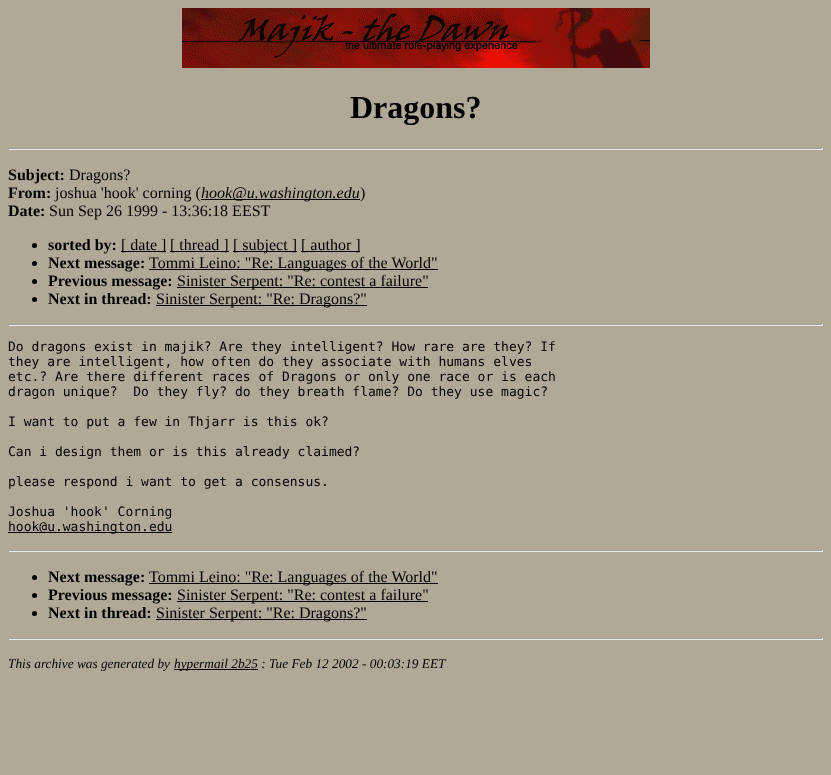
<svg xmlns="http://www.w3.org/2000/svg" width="831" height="775">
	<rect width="100%" height="100%" fill="#B0A997" />
	<image x="182" y="8" width="468" height="60" href="assets/img1.png" />
	<text x="350" y="118" font-family="Liberation Serif" font-size="32" font-weight="700" fill="#000000">Dragons?</text>
	<rect x="8" y="148" width="815" height="1" fill="#9F9F9F" />
	<rect x="822" y="148" width="1" height="2" fill="#EEEEEE" />
	<rect x="8" y="149" width="815" height="1" fill="#EEEEEE" />
	<rect x="8" y="148" width="1" height="2" fill="#9F9F9F" />
	<text x="8" y="180" font-family="Liberation Serif" font-size="16" font-weight="700" fill="#000000">Subject:</text>
	<text x="69" y="180" font-family="Liberation Serif" font-size="16" fill="#000000">Dragons?</text>
	<text x="8" y="198" font-family="Liberation Serif" font-size="16" font-weight="700" fill="#000000">From:</text>
	<text x="55" y="198" font-family="Liberation Serif" font-size="16" fill="#000000">joshua 'hook' corning (</text>
	<rect x="201" y="199" width="159" height="1" fill="#000000" />
	<text x="201" y="198" font-family="Liberation Serif" font-size="16" font-style="italic" fill="#000000">hook@u.washington.edu</text>
	<text x="360" y="198" font-family="Liberation Serif" font-size="16" fill="#000000">)</text>
	<text x="8" y="216" font-family="Liberation Serif" font-size="16" font-weight="700" fill="#000000">Date:</text>
	<text x="49" y="216" font-family="Liberation Serif" font-size="16" fill="#000000">Sun Sep 26 1999 - 13:36:18 EEST</text>
	<circle cx="34.5" cy="245.5" r="2.5" fill="#000000" />
	<text x="48" y="250" font-family="Liberation Serif" font-size="16" font-weight="700" fill="#000000">sorted by:</text>
	<rect x="121" y="251" width="45" height="1" fill="#000000" />
	<text x="121" y="250" font-family="Liberation Serif" font-size="16" fill="#000000">[ date ]</text>
	<rect x="170" y="251" width="59" height="1" fill="#000000" />
	<text x="170" y="250" font-family="Liberation Serif" font-size="16" fill="#000000">[ thread ]</text>
	<rect x="233" y="251" width="64" height="1" fill="#000000" />
	<text x="233" y="250" font-family="Liberation Serif" font-size="16" fill="#000000">[ subject ]</text>
	<rect x="301" y="251" width="59" height="1" fill="#000000" />
	<text x="301" y="250" font-family="Liberation Serif" font-size="16" fill="#000000">[ author ]</text>
	<circle cx="34.5" cy="263.5" r="2.5" fill="#000000" />
	<text x="48" y="268" font-family="Liberation Serif" font-size="16" font-weight="700" fill="#000000">Next message:</text>
	<rect x="149" y="269" width="289" height="1" fill="#000000" />
	<text x="149" y="268" font-family="Liberation Serif" font-size="16" fill="#000000">Tommi Leino: "Re: Languages of the World"</text>
	<circle cx="34.5" cy="281.5" r="2.5" fill="#000000" />
	<text x="48" y="286" font-family="Liberation Serif" font-size="16" font-weight="700" fill="#000000">Previous message:</text>
	<rect x="177" y="287" width="251" height="1" fill="#000000" />
	<text x="177" y="286" font-family="Liberation Serif" font-size="16" fill="#000000">Sinister Serpent: "Re: contest a failure"</text>
	<circle cx="34.5" cy="299.5" r="2.5" fill="#000000" />
	<text x="48" y="304" font-family="Liberation Serif" font-size="16" font-weight="700" fill="#000000">Next in thread:</text>
	<rect x="156" y="305" width="211" height="1" fill="#000000" />
	<text x="156" y="304" font-family="Liberation Serif" font-size="16" fill="#000000">Sinister Serpent: "Re: Dragons?"</text>
	<rect x="8" y="324" width="815" height="1" fill="#9F9F9F" />
	<rect x="822" y="324" width="1" height="2" fill="#EEEEEE" />
	<rect x="8" y="325" width="815" height="1" fill="#EEEEEE" />
	<rect x="8" y="324" width="1" height="2" fill="#9F9F9F" />
	<g font-family="DejaVu Sans Mono" font-size="13" fill="#000000">
		<text x="8" y="351">Do dragons exist in majik? Are they intelligent? How rare are they? If</text>
		<text x="8" y="366">they are intelligent, how often do they associate with humans elves</text>
		<text x="8" y="381">etc.? Are there different races of Dragons or only one race or is each</text>
		<text x="8" y="396" xml:space="preserve">dragon unique?  Do they fly? do they breath flame? Do they use magic?</text>
		<text x="8" y="426">I want to put a few in Thjarr is this ok?</text>
		<text x="8" y="456">Can i design them or is this already claimed?</text>
		<text x="8" y="486">please respond i want to get a consensus.</text>
		<text x="8" y="516">Joshua 'hook' Corning</text>
	</g>
	<rect x="8" y="532" width="164" height="1" fill="#000000" />
	<text x="8" y="531" font-family="DejaVu Sans Mono" font-size="13" fill="#000000">hook@u.washington.edu</text>
	<rect x="8" y="550" width="815" height="1" fill="#9F9F9F" />
	<rect x="822" y="550" width="1" height="2" fill="#EEEEEE" />
	<rect x="8" y="551" width="815" height="1" fill="#EEEEEE" />
	<rect x="8" y="550" width="1" height="2" fill="#9F9F9F" />
	<circle cx="34.5" cy="577.5" r="2.5" fill="#000000" />
	<text x="48" y="582" font-family="Liberation Serif" font-size="16" font-weight="700" fill="#000000">Next message:</text>
	<rect x="149" y="583" width="289" height="1" fill="#000000" />
	<text x="149" y="582" font-family="Liberation Serif" font-size="16" fill="#000000">Tommi Leino: "Re: Languages of the World"</text>
	<circle cx="34.5" cy="595.5" r="2.5" fill="#000000" />
	<text x="48" y="600" font-family="Liberation Serif" font-size="16" font-weight="700" fill="#000000">Previous message:</text>
	<rect x="177" y="601" width="251" height="1" fill="#000000" />
	<text x="177" y="600" font-family="Liberation Serif" font-size="16" fill="#000000">Sinister Serpent: "Re: contest a failure"</text>
	<circle cx="34.5" cy="613.5" r="2.5" fill="#000000" />
	<text x="48" y="618" font-family="Liberation Serif" font-size="16" font-weight="700" fill="#000000">Next in thread:</text>
	<rect x="156" y="619" width="211" height="1" fill="#000000" />
	<text x="156" y="618" font-family="Liberation Serif" font-size="16" fill="#000000">Sinister Serpent: "Re: Dragons?"</text>
	<rect x="8" y="638" width="815" height="1" fill="#9F9F9F" />
	<rect x="822" y="638" width="1" height="2" fill="#EEEEEE" />
	<rect x="8" y="639" width="815" height="1" fill="#EEEEEE" />
	<rect x="8" y="638" width="1" height="2" fill="#9F9F9F" />
	<text x="8" y="668" font-family="Liberation Serif" font-size="13.3" font-style="italic" fill="#000000">This archive was generated by</text>
	<rect x="174" y="669" width="84" height="1" fill="#000000" />
	<text x="174" y="668" font-family="Liberation Serif" font-size="13.3" font-style="italic" fill="#000000">hypermail 2b25 : Tue Feb 12 2002 - 00:03:19 EET</text>
</svg>
